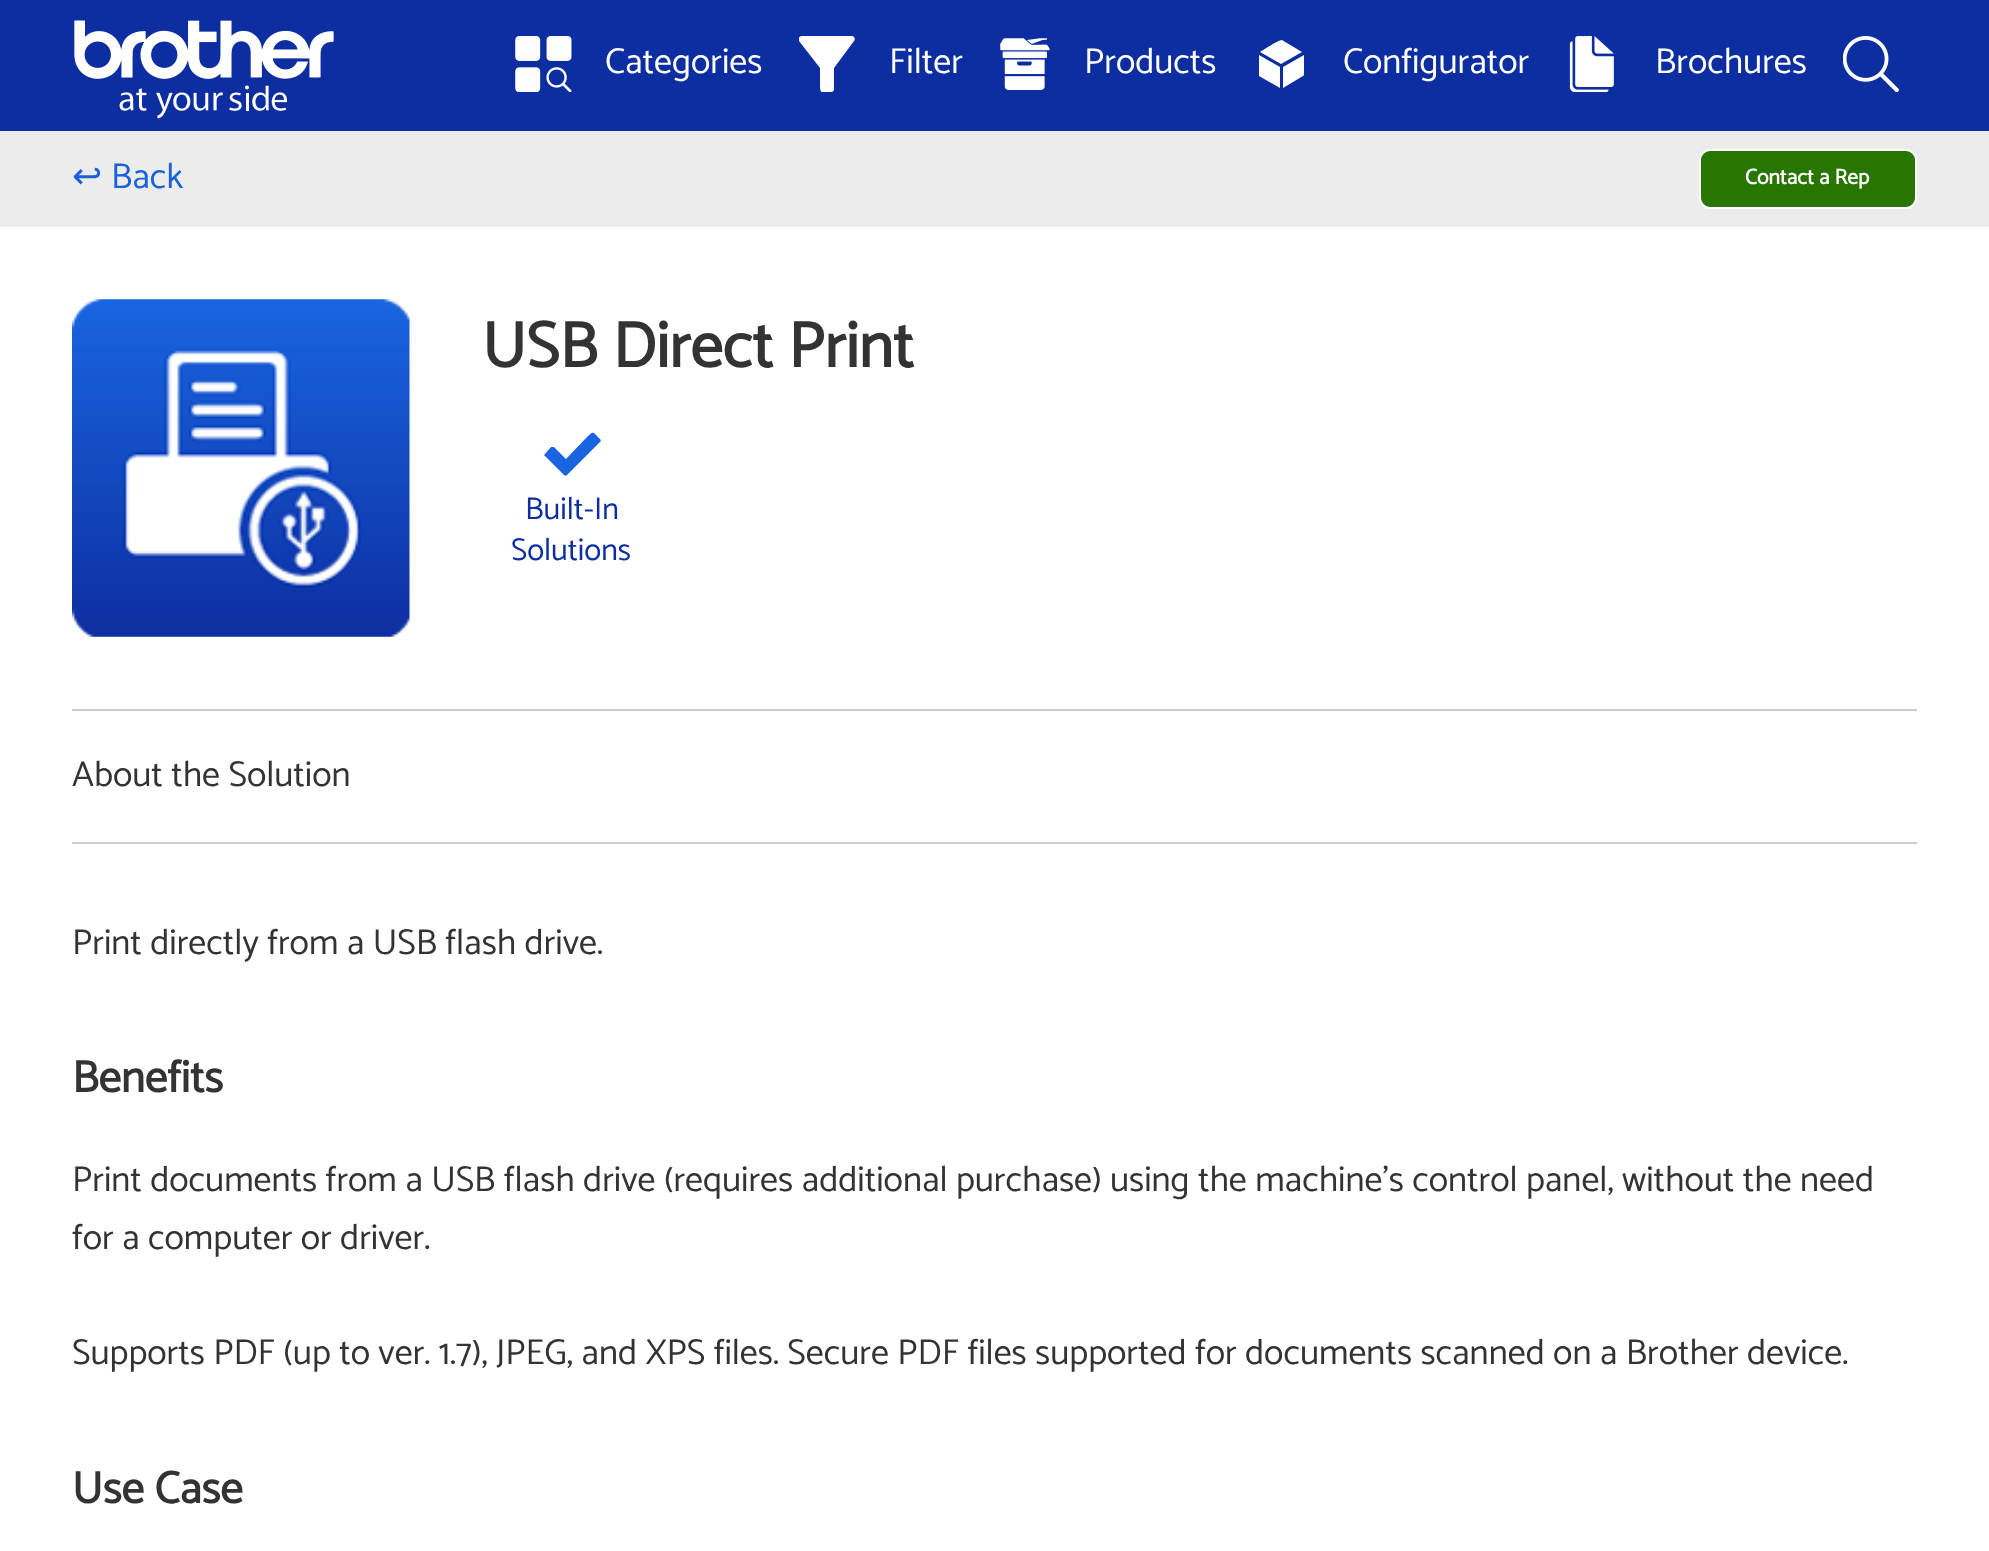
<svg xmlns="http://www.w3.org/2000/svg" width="1989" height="1551">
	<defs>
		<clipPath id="clip1"><rect x="799" y="36" width="56" height="56" /></clipPath>
	</defs>
	<rect width="100%" height="100%" fill="#ECECEC" />
	<rect x="0" y="0" width="1989" height="131" fill="#0D2EA0" />
	<image x="74" y="20" width="260" height="99" href="assets/img1.png" />
	<image x="515" y="36" width="57" height="56" href="assets/img2.png" />
	<text x="605" y="73" font-family="Catamaran" font-size="36" font-weight="100" fill="#FFFFFF">Categories</text>
	<g clip-path="url(#clip1)">
		<path d="M831 92C823 92 820 95 820 86V68L799 41C798 39 799 36 802 36H852C854 36 856 39 854 41L834 68V89C834 91 833 92 831 92Z" fill="#FFFFFF" />
	</g>
	<text x="889" y="73" font-family="Catamaran" font-size="36" font-weight="100" fill="#FFFFFF">Filter</text>
	<image x="1000" y="38" width="50" height="52" href="assets/img3.png" />
	<text x="1084" y="73" font-family="Catamaran" font-size="36" font-weight="100" fill="#FFFFFF">Products</text>
	<path d="M1282 40C1280 39 1263 50 1260 52L1281 64L1302 52ZM1304 55L1283 67V88L1303 76L1304 75ZM1280 88V67L1259 55V75V76Z" fill="#FFFFFF" />
	<text x="1343" y="73" font-family="Catamaran" font-size="36" font-weight="100" fill="#FFFFFF">Configurator</text>
	<image x="1569" y="36" width="45" height="56" href="assets/img4.png" />
	<text x="1655" y="73" font-family="Catamaran" font-size="36" font-weight="100" fill="#FFFFFF">Brochures</text>
	<image x="1843" y="36" width="56" height="56" href="assets/img5.png" />
	<text x="72" y="188" font-family="DejaVu Sans" font-size="36" fill="#1861D8">↩</text>
	<text x="111" y="188" font-family="Catamaran" font-size="36" font-weight="100" fill="#1861D8">Back</text>
	<rect x="1700" y="150" width="216" height="58" rx="10" fill="#287600" stroke="#FFFFFF" stroke-width="2" />
	<text x="1745" y="184" font-family="Catamaran" font-size="21.5" font-weight="700" fill="#FFFFFF">Contact a Rep</text>
	<rect x="0" y="227" width="1989" height="1324" fill="#FFFFFF" />
	<image x="72" y="299" width="338" height="338" href="assets/img6.png" />
	<text x="482" y="367" font-family="Catamaran" font-size="64.75" font-weight="700" fill="#333333">USB Direct Print</text>
	<path d="M600 439C593 432 594 430 587 437L566 459L554 447C554 447 552 447 551 447L545 454C544 454 544 456 545 456L564 475C565 476 566 476 567 475L600 442C601 441 601 440 600 439Z" fill="#1965E1" fill-rule="evenodd" />
	<g font-family="Catamaran" font-size="31.5" font-weight="100" fill="#0D2EA0">
		<text x="525" y="519">Built-In</text>
		<text x="511" y="560">Solutions</text>
	</g>
	<rect x="72" y="709" width="1845" height="2" fill="#CCCCCC" />
	<rect x="72" y="842" width="1845" height="2" fill="#CCCCCC" />
	<g font-family="Catamaran" font-size="36" font-weight="100" fill="#333333">
		<text x="72" y="786">About the Solution</text>
		<text x="72" y="954">Print directly from a USB flash drive.</text>
	</g>
	<text x="72" y="1092" font-family="Catamaran" font-size="45" font-weight="700" fill="#333333">Benefits</text>
	<g font-family="Catamaran" font-size="36" font-weight="100" fill="#333333">
		<text x="72" y="1191">Print documents from a USB flash drive (requires additional purchase) using the machine's control panel, without the need</text>
		<text x="72" y="1249">for a computer or driver.</text>
		<text x="72" y="1364">Supports PDF (up to ver. 1.7), JPEG, and XPS files. Secure PDF files supported for documents scanned on a Brother device.</text>
	</g>
	<text x="72" y="1503" font-family="Catamaran" font-size="45" font-weight="700" fill="#333333">Use Case</text>
</svg>
